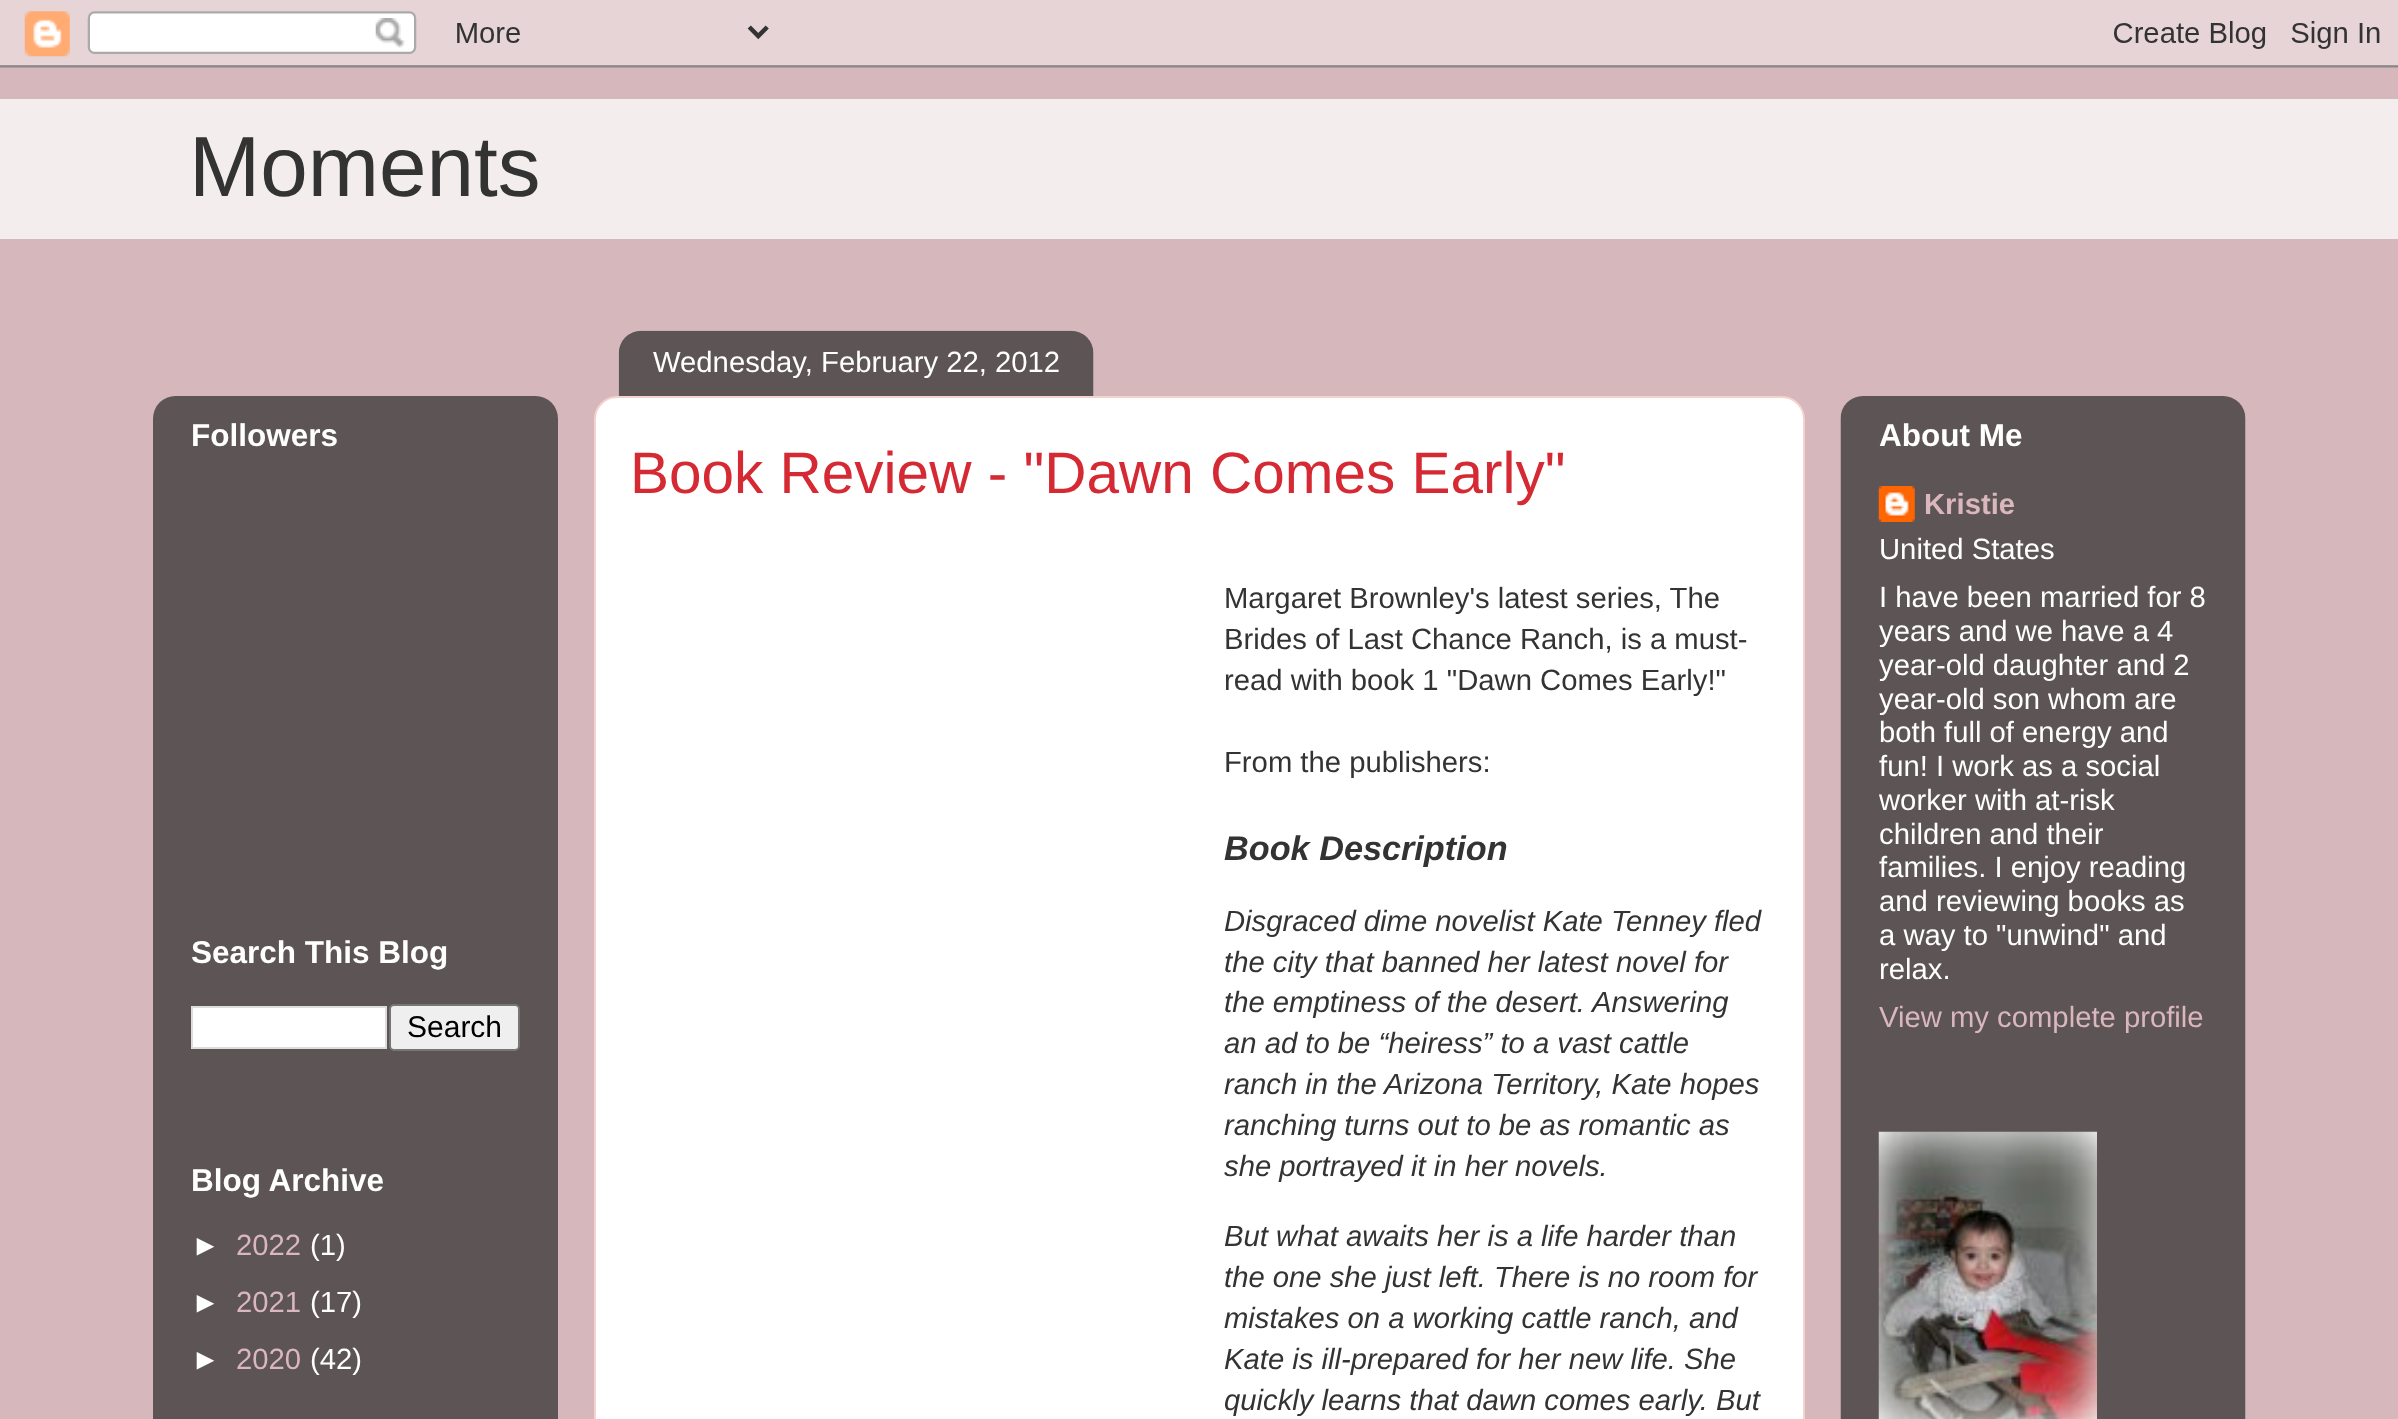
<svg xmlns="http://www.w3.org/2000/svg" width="2398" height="1419">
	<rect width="100%" height="100%" fill="#D5B7BC" />
	<image x="0" y="0" width="2398" height="68" href="assets/img1.png" />
	<rect x="0" y="99" width="2398" height="140" fill="#F4EDEE" />
	<text x="189" y="196" font-family="Liberation Sans" font-size="85.5" fill="#333333">Moments</text>
	<image x="153" y="396" width="405" height="1023" href="assets/img2.png" />
	<g font-family="Liberation Sans" font-size="31.5" font-weight="700" fill="#FFFFFF">
		<text x="191" y="446">Followers</text>
		<text x="191" y="963">Search This Blog</text>
	</g>
	<rect x="192" y="1007" width="194" height="41" fill="#FFFFFF" stroke="#DDDDDD" stroke-width="2" />
	<rect x="390" y="1005" width="129" height="45" rx="4" fill="#EFEFEF" stroke="#767676" stroke-width="2" />
	<text x="407" y="1037" font-family="Liberation Sans" font-size="30" fill="#000000">Search</text>
	<text x="191" y="1191" font-family="Liberation Sans" font-size="31.5" font-weight="700" fill="#FFFFFF">Blog Archive</text>
	<text x="191" y="1255" font-family="Liberation Sans" font-size="29.25" fill="#FFFFFF">►</text>
	<text x="236" y="1255" font-family="Liberation Sans" font-size="29.25" fill="#DAB7BC">2022</text>
	<g font-family="Liberation Sans" font-size="29.25" fill="#FFFFFF">
		<text x="310" y="1255">(1)</text>
		<text x="191" y="1312">►</text>
	</g>
	<text x="236" y="1312" font-family="Liberation Sans" font-size="29.25" fill="#DAB7BC">2021</text>
	<g font-family="Liberation Sans" font-size="29.25" fill="#FFFFFF">
		<text x="310" y="1312">(17)</text>
		<text x="191" y="1369">►</text>
	</g>
	<text x="236" y="1369" font-family="Liberation Sans" font-size="29.25" fill="#DAB7BC">2020</text>
	<text x="310" y="1369" font-family="Liberation Sans" font-size="29.25" fill="#FFFFFF">(42)</text>
	<path d="M617 397H1782C1794 397 1804 407 1804 419V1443H595V419C595 407 605 397 617 397Z" fill="#FFFFFF" stroke="#F4D3CC" stroke-width="2" />
	<image x="618" y="330" width="476" height="66" href="assets/img3.png" />
	<text x="653" y="372" font-family="Liberation Sans" font-size="29.25" fill="#FFFFFF">Wednesday, February 22, 2012</text>
	<text x="630" y="493" font-family="Liberation Sans" font-size="58.5" fill="#D52A33">Book Review - "Dawn Comes Early"</text>
	<g font-family="Liberation Sans" font-size="29.25" fill="#333333">
		<text x="1224" y="608">Margaret Brownley's latest series, The</text>
		<text x="1224" y="649">Brides of Last Chance Ranch, is a must-</text>
		<text x="1224" y="690">read with book 1 "Dawn Comes Early!"</text>
		<text x="1224" y="772">From the publishers:</text>
	</g>
	<text x="1224" y="860" font-family="Liberation Sans" font-size="34.25" font-weight="700" font-style="italic" fill="#333333">Book Description</text>
	<g font-family="Liberation Sans" font-size="29.25" font-style="italic" fill="#333333">
		<text x="1224" y="931">Disgraced dime novelist Kate Tenney fled</text>
		<text x="1224" y="972">the city that banned her latest novel for</text>
		<text x="1224" y="1012">the emptiness of the desert. Answering</text>
		<text x="1224" y="1053">an ad to be “heiress” to a vast cattle</text>
		<text x="1224" y="1094">ranch in the Arizona Territory, Kate hopes</text>
		<text x="1224" y="1135">ranching turns out to be as romantic as</text>
		<text x="1224" y="1176">she portrayed it in her novels.</text>
		<text x="1224" y="1246">But what awaits her is a life harder than</text>
		<text x="1224" y="1287">the one she just left. There is no room for</text>
		<text x="1224" y="1328">mistakes on a working cattle ranch, and</text>
		<text x="1224" y="1369">Kate is ill-prepared for her new life. She</text>
		<text x="1224" y="1410">quickly learns that dawn comes early. But</text>
	</g>
	<image x="1840" y="396" width="406" height="1023" href="assets/img4.png" />
	<text x="1879" y="446" font-family="Liberation Sans" font-size="31.5" font-weight="700" fill="#FFFFFF">About Me</text>
	<image x="1878" y="486" width="37" height="36" href="assets/img5.png" />
	<text x="1924" y="514" font-family="Liberation Sans" font-size="29.25" font-weight="700" fill="#DAB7BC">Kristie</text>
	<g font-family="Liberation Sans" font-size="29.25" fill="#FFFFFF">
		<text x="1879" y="559">United States</text>
		<text x="1879" y="607">I have been married for 8</text>
		<text x="1879" y="641">years and we have a 4</text>
		<text x="1879" y="675">year-old daughter and 2</text>
		<text x="1879" y="709">year-old son whom are</text>
		<text x="1879" y="742">both full of energy and</text>
		<text x="1879" y="776">fun! I work as a social</text>
		<text x="1879" y="810">worker with at-risk</text>
		<text x="1879" y="844">children and their</text>
		<text x="1879" y="877">families. I enjoy reading</text>
		<text x="1879" y="911">and reviewing books as</text>
		<text x="1879" y="945">a way to "unwind" and</text>
		<text x="1879" y="979">relax.</text>
	</g>
	<text x="1879" y="1027" font-family="Liberation Sans" font-size="29.25" fill="#DAB7BC">View my complete profile</text>
	<image x="1878" y="1131" width="219" height="288" href="assets/img6.png" />
</svg>
